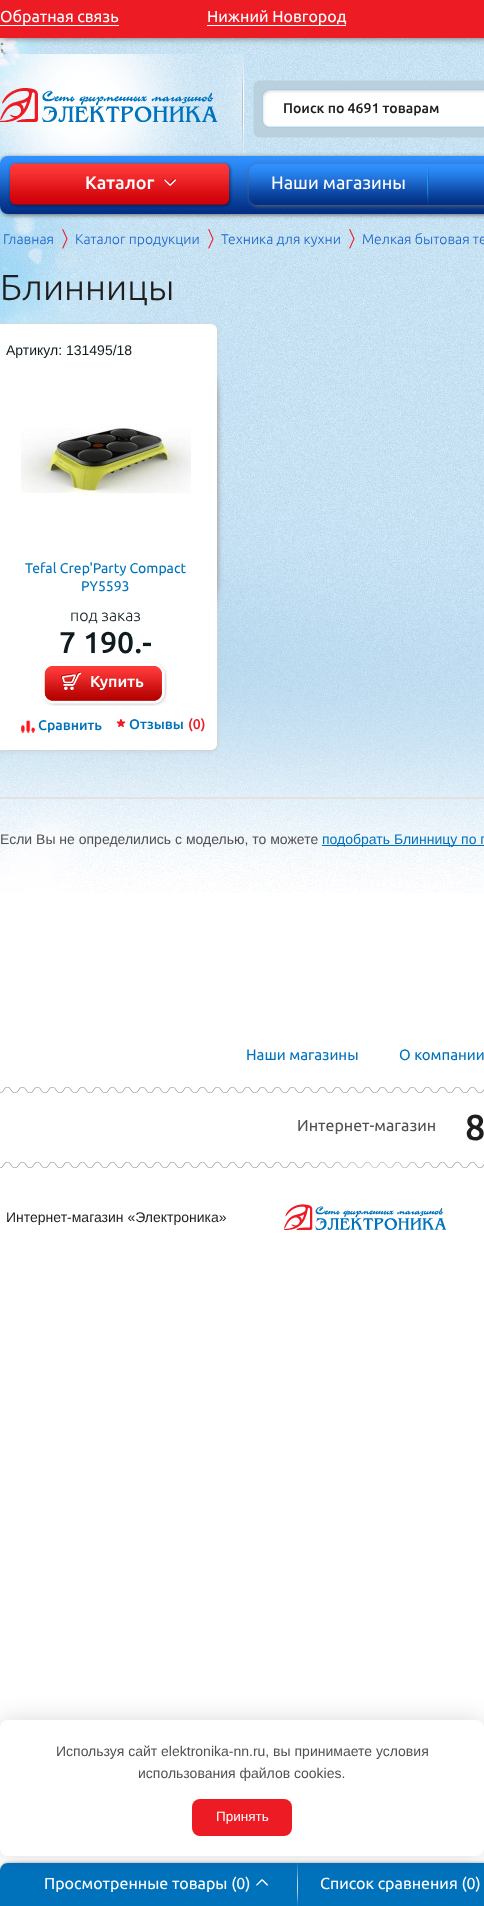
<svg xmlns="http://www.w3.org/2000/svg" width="484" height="1906">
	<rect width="100%" height="100%" fill="#FFFFFF" />
	<image x="0" y="38" width="484" height="855" href="assets/img1.png" />
	<rect x="0" y="0" width="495" height="38" fill="#666666" filter="blur(3.5px)" />
	<rect x="0" y="0" width="484" height="38" fill="#ED1C24" />
	<rect x="0" y="25" width="119" height="1" fill="#FFFFFF" />
	<text x="0" y="22" font-family="Ubuntu" font-size="16" fill="#FFFFFF">Обратная связь</text>
	<rect x="207" y="25" width="139" height="1" fill="#FFFFFF" />
	<text x="207" y="22" font-family="Ubuntu" font-size="16" fill="#FFFFFF">Нижний Новгород</text>
	<text x="0" y="51" font-family="Liberation Sans" font-size="14" fill="#515151">;</text>
	<image x="0" y="54" width="244" height="102" href="assets/img2.png" />
	<image x="242" y="57" width="2" height="99" href="assets/img3.png" />
	<image x="0" y="88" width="218" height="34" href="assets/img4.png" />
	<image x="253" y="80" width="231" height="58" href="assets/img5.png" />
	<text x="283" y="113" font-family="Ubuntu" font-size="14" font-weight="500" fill="#1E1E1E">Поиск по 4691 товарам</text>
	<rect x="1" y="157" width="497" height="58" rx="8" fill="#666666" filter="blur(2px)" />
	<image x="0" y="156" width="484" height="58" href="assets/img6.png" />
	<image x="8" y="162" width="225" height="46" href="assets/img7.png" />
	<text x="85" y="189" font-family="Ubuntu" font-size="18" font-weight="500" fill="#FFFFFF">Каталог</text>
	<image x="163" y="178" width="13" height="8" href="assets/img8.png" />
	<rect x="250" y="165" width="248" height="41" rx="8" fill="#666666" filter="blur(2px)" />
	<image x="249" y="164" width="235" height="41" href="assets/img9.png" />
	<image x="427" y="166" width="2" height="39" href="assets/img10.png" />
	<text x="271" y="189" font-family="Ubuntu" font-size="18" fill="#FFFFFF">Наши магазины</text>
	<image x="62" y="229" width="6" height="20" href="assets/img11.png" />
	<text x="3" y="244" font-family="Ubuntu" font-size="14" font-weight="300" fill="#1A65C8">Главная</text>
	<image x="208" y="229" width="6" height="20" href="assets/img12.png" />
	<text x="75" y="244" font-family="Ubuntu" font-size="14" font-weight="300" fill="#1A65C8">Каталог продукции</text>
	<image x="349" y="229" width="6" height="20" href="assets/img13.png" />
	<g font-family="Ubuntu" font-size="14" font-weight="300" fill="#1A65C8">
		<text x="221" y="244">Техника для кухни</text>
		<text x="362" y="244">Мелкая бытовая те</text>
	</g>
	<text x="0" y="300" font-family="Ubuntu" font-size="36" font-weight="300" fill="#1E1E1E">Блинницы</text>
	<rect x="-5" y="325" width="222" height="426" rx="6" fill="#CDCDCD" filter="blur(2px)" />
	<rect x="-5" y="329" width="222" height="321" rx="70" fill="#8E8E8E" filter="blur(3px)" />
	<rect x="-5" y="324" width="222" height="426" rx="6" fill="#FFFFFF" />
	<text x="6" y="355" font-family="Liberation Sans" font-size="14" fill="#0E1C20">Артикул: 131495/18</text>
	<image x="21" y="424" width="170" height="72" href="assets/img14.png" />
	<g font-family="Ubuntu" font-size="14" fill="#0072BC">
		<text x="25" y="573">Tefal Crep'Party Compact</text>
		<text x="81" y="591">PY5593</text>
	</g>
	<text x="70" y="621" font-family="Ubuntu" font-size="16" font-weight="300" fill="#0E1C20">под заказ</text>
	<text x="59" y="653" font-family="Ubuntu" font-size="30" font-weight="500" fill="#0E1C20">7 190.-</text>
	<image x="41" y="662" width="126" height="44" href="assets/img15.png" />
	<text x="90" y="687" font-family="Ubuntu" font-size="16" font-weight="500" fill="#FFFFFF">Купить</text>
	<image x="21" y="720" width="14" height="13" href="assets/img16.png" />
	<text x="38" y="730" font-family="Ubuntu" font-size="14" font-weight="500" fill="#0072BC">Cравнить</text>
	<image x="116" y="719" width="10" height="8" href="assets/img17.png" />
	<text x="129" y="729" font-family="Ubuntu" font-size="14" font-weight="500" fill="#0072BC">Отзывы</text>
	<text x="188" y="729" font-family="Ubuntu" font-size="14" font-weight="500" fill="#ED1C24">(0)</text>
	<rect x="0" y="797" width="484" height="2" fill="#E2E2E2" />
	<text x="0" y="844" font-family="Liberation Sans" font-size="14" fill="#515151">Если Вы не определились с моделью, то можете</text>
	<rect x="322" y="845" width="162" height="1" fill="#0072BC" />
	<text x="322" y="844" font-family="Liberation Sans" font-size="14" fill="#0072BC">подобрать Блинницу по п</text>
	<g font-family="Ubuntu" font-size="15" fill="#0072BC">
		<text x="246" y="1060">Наши магазины</text>
		<text x="399" y="1060">О компании</text>
	</g>
	<image x="0" y="1087" width="484" height="6" href="assets/img18.png" />
	<text x="297" y="1131" font-family="Ubuntu" font-size="16" fill="#515151">Интернет-магазин</text>
	<text x="465" y="1140" font-family="Ubuntu" font-size="36" font-weight="500" fill="#1E1E1E">8</text>
	<image x="0" y="1162" width="484" height="6" href="assets/img18.png" />
	<image x="311" y="1162" width="127" height="6" href="assets/img19.png" />
	<text x="6" y="1222" font-family="Liberation Sans" font-size="14" fill="#1E1E1E">Интернет-магазин «Электроника»</text>
	<image x="284" y="1204" width="162" height="26" href="assets/img20.png" />
	<rect x="1" y="1864" width="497" height="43" rx="8" fill="#666666" filter="blur(2px)" />
	<path d="M8 1863H484C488.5 1863 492 1866.5 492 1871V1906H0V1871C0 1866.5 3.5 1863 8 1863Z" fill="#0072BC" />
	<image x="297" y="1863" width="1" height="43" href="assets/img21.png" />
	<text x="44" y="1889" font-family="Ubuntu" font-size="16" fill="#FFFFFF">Просмотренные товары (0)</text>
	<image x="256" y="1879" width="12" height="7" href="assets/img22.png" />
	<text x="320" y="1889" font-family="Ubuntu" font-size="16" fill="#FFFFFF">Список сравнения (0)</text>
	<rect x="0" y="1720" width="484" height="136" rx="8" fill="#000000" fill-opacity="0.15" filter="blur(12.5px)" />
	<rect x="0" y="1720" width="484" height="136" rx="8" fill="#FFFFFF" />
	<g font-family="Liberation Sans" font-size="14" fill="#515151">
		<text x="56" y="1756">Используя сайт elektronika-nn.ru, вы принимаете условия</text>
		<text x="138" y="1778">использования файлов cookies.</text>
	</g>
	<rect x="192" y="1799" width="100" height="37" rx="8" fill="#ED1C24" />
	<text x="216" y="1821" font-family="Liberation Sans" font-size="13.5" fill="#FFFFFF">Принять</text>
</svg>
